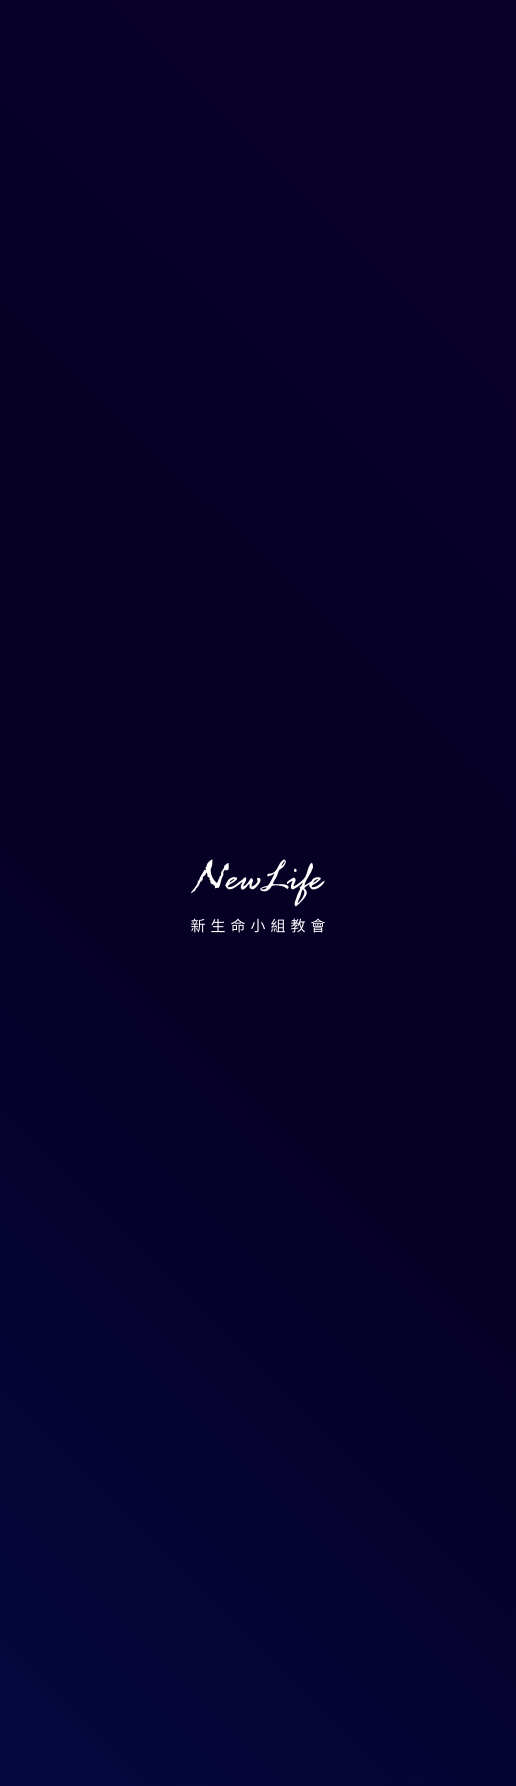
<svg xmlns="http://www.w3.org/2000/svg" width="516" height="1786">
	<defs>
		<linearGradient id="g1" gradientUnits="userSpaceOnUse" x1="-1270" y1="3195" x2="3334" y2="-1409"><stop offset="0" stop-color="#001A8B" /><stop offset="0.4" stop-color="#060024" /><stop offset="0.75" stop-color="#0D0030" /><stop offset="1" stop-color="#CC2B5E" /></linearGradient>
	</defs>
	<rect width="100%" height="100%" fill="#FFFFFF" />
	<rect x="0" y="0" width="516" height="1786" fill="url(#g1)" />
	<image x="191" y="859" width="38" height="34" href="assets/img1.png" />
	<image x="225" y="877" width="36" height="13" href="assets/img2.png" />
	<image x="260" y="859" width="29" height="33" href="assets/img3.png" />
	<image x="286" y="862" width="39" height="45" href="assets/img4.png" />
	<image x="191" y="918" width="14" height="15" href="assets/img5.png" />
	<image x="211" y="918" width="14" height="15" href="assets/img6.png" />
	<image x="231" y="918" width="14" height="15" href="assets/img7.png" />
	<image x="251" y="918" width="14" height="15" href="assets/img8.png" />
	<image x="271" y="918" width="14" height="15" href="assets/img9.png" />
	<image x="291" y="918" width="14" height="15" href="assets/img10.png" />
	<image x="311" y="918" width="14" height="15" href="assets/img11.png" />
</svg>
